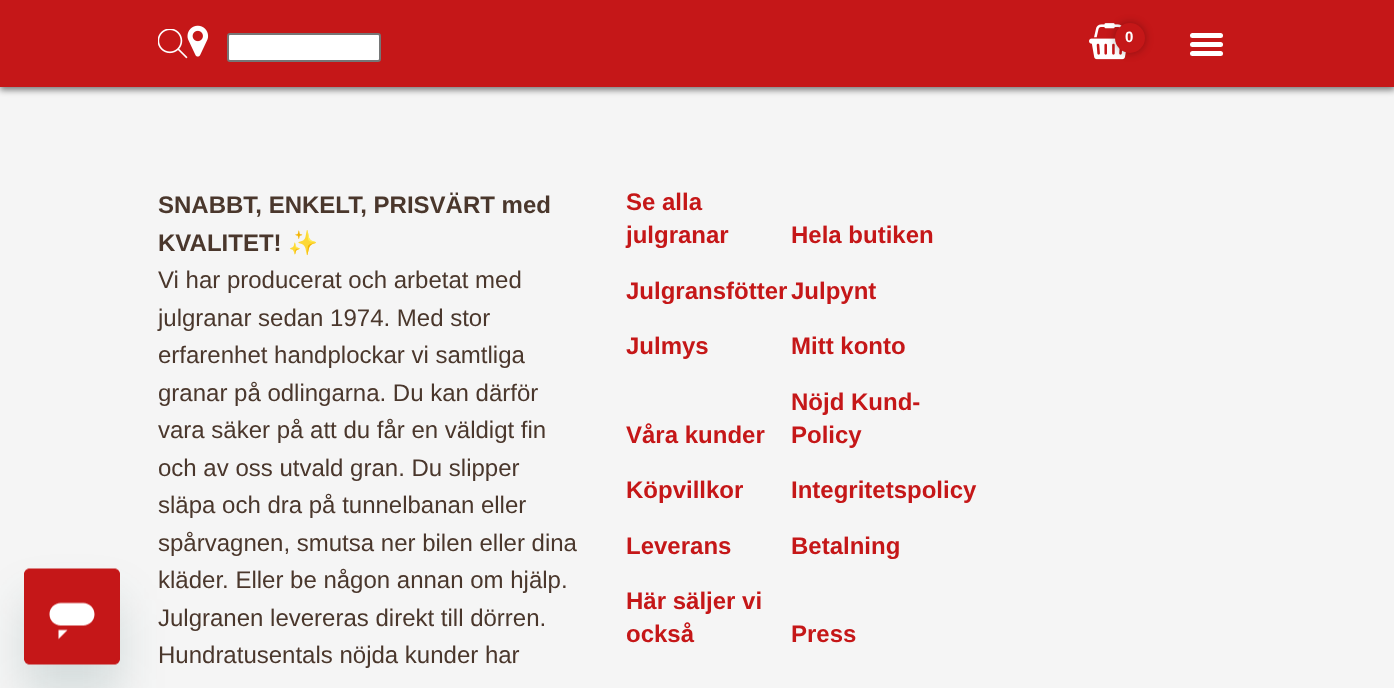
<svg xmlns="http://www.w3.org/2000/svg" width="1394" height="688">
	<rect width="100%" height="100%" fill="#F5F5F5" />
	<rect x="0" y="3" width="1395" height="87" fill="#000000" fill-opacity="0.5" filter="blur(3px)" />
	<rect x="0" y="0" width="1394" height="87" fill="#C51718" />
	<image x="187" y="25" width="22" height="32" href="assets/img2.png" />
	<image x="158" y="29" width="30" height="30" href="assets/img1.png" />
	<rect x="228" y="34" width="152" height="27" rx="2" fill="#FFFFFF" stroke="#767676" stroke-width="2" />
	<image x="1089" y="23" width="37" height="37" href="assets/img3.png" />
	<rect x="1115" y="23" width="30" height="30" rx="15" fill="#000000" fill-opacity="0.3" filter="blur(4px)" />
	<circle cx="1130" cy="38" r="15" fill="#C51718" />
	<text x="1125" y="42" font-family="Liberation Sans" font-size="15" font-weight="700" fill="#FFFFFF">0</text>
	<rect x="1190" y="33" width="33" height="5" rx="2.5" fill="#FFFFFF" />
	<rect x="1190" y="42" width="33" height="5" rx="2.5" fill="#FFFFFF" />
	<rect x="1190" y="51" width="33" height="5" rx="2.5" fill="#FFFFFF" />
	<rect x="24" y="599" width="96" height="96" rx="6" fill="#17494D" fill-opacity="0.15" filter="blur(22.5px)" />
	<image x="24" y="568" width="96" height="97" href="assets/img4.png" />
	<g font-family="Liberation Sans" font-size="24" font-weight="700" fill="#4A372C">
		<text x="158" y="213">SNABBT, ENKELT, PRISVÄRT med</text>
		<text x="158" y="251">KVALITET!</text>
	</g>
	<text x="288" y="251" font-family="Noto Color Emoji" font-size="24" font-weight="700" fill="#4A372C">✨</text>
	<g font-family="Liberation Sans" font-size="24" fill="#4A372C">
		<text x="158" y="288">Vi har producerat och arbetat med</text>
		<text x="158" y="326">julgranar sedan 1974. Med stor</text>
		<text x="158" y="363">erfarenhet handplockar vi samtliga</text>
		<text x="158" y="401">granar på odlingarna. Du kan därför</text>
		<text x="158" y="438">vara säker på att du får en väldigt fin</text>
		<text x="158" y="476">och av oss utvald gran. Du slipper</text>
		<text x="158" y="513">släpa och dra på tunnelbanan eller</text>
		<text x="158" y="551">spårvagnen, smutsa ner bilen eller dina</text>
		<text x="158" y="588">kläder. Eller be någon annan om hjälp.</text>
		<text x="158" y="626">Julgranen levereras direkt till dörren.</text>
		<text x="158" y="663">Hundratusentals nöjda kunder har</text>
	</g>
	<g font-family="Liberation Sans" font-size="24" font-weight="700" fill="#C51718">
		<text x="626" y="210">Se alla</text>
		<text x="626" y="243">julgranar</text>
		<text x="791" y="243">Hela butiken</text>
		<text x="626" y="299">Julgransfötter</text>
		<text x="791" y="299">Julpynt</text>
		<text x="626" y="354">Julmys</text>
		<text x="791" y="354">Mitt konto</text>
		<text x="626" y="443">Våra kunder</text>
		<text x="791" y="410">Nöjd Kund-</text>
		<text x="791" y="443">Policy</text>
		<text x="626" y="498">Köpvillkor</text>
		<text x="791" y="498">Integritetspolicy</text>
		<text x="626" y="554">Leverans</text>
		<text x="791" y="554">Betalning</text>
		<text x="626" y="609">Här säljer vi</text>
		<text x="626" y="642">också</text>
		<text x="791" y="642">Press</text>
	</g>
</svg>
